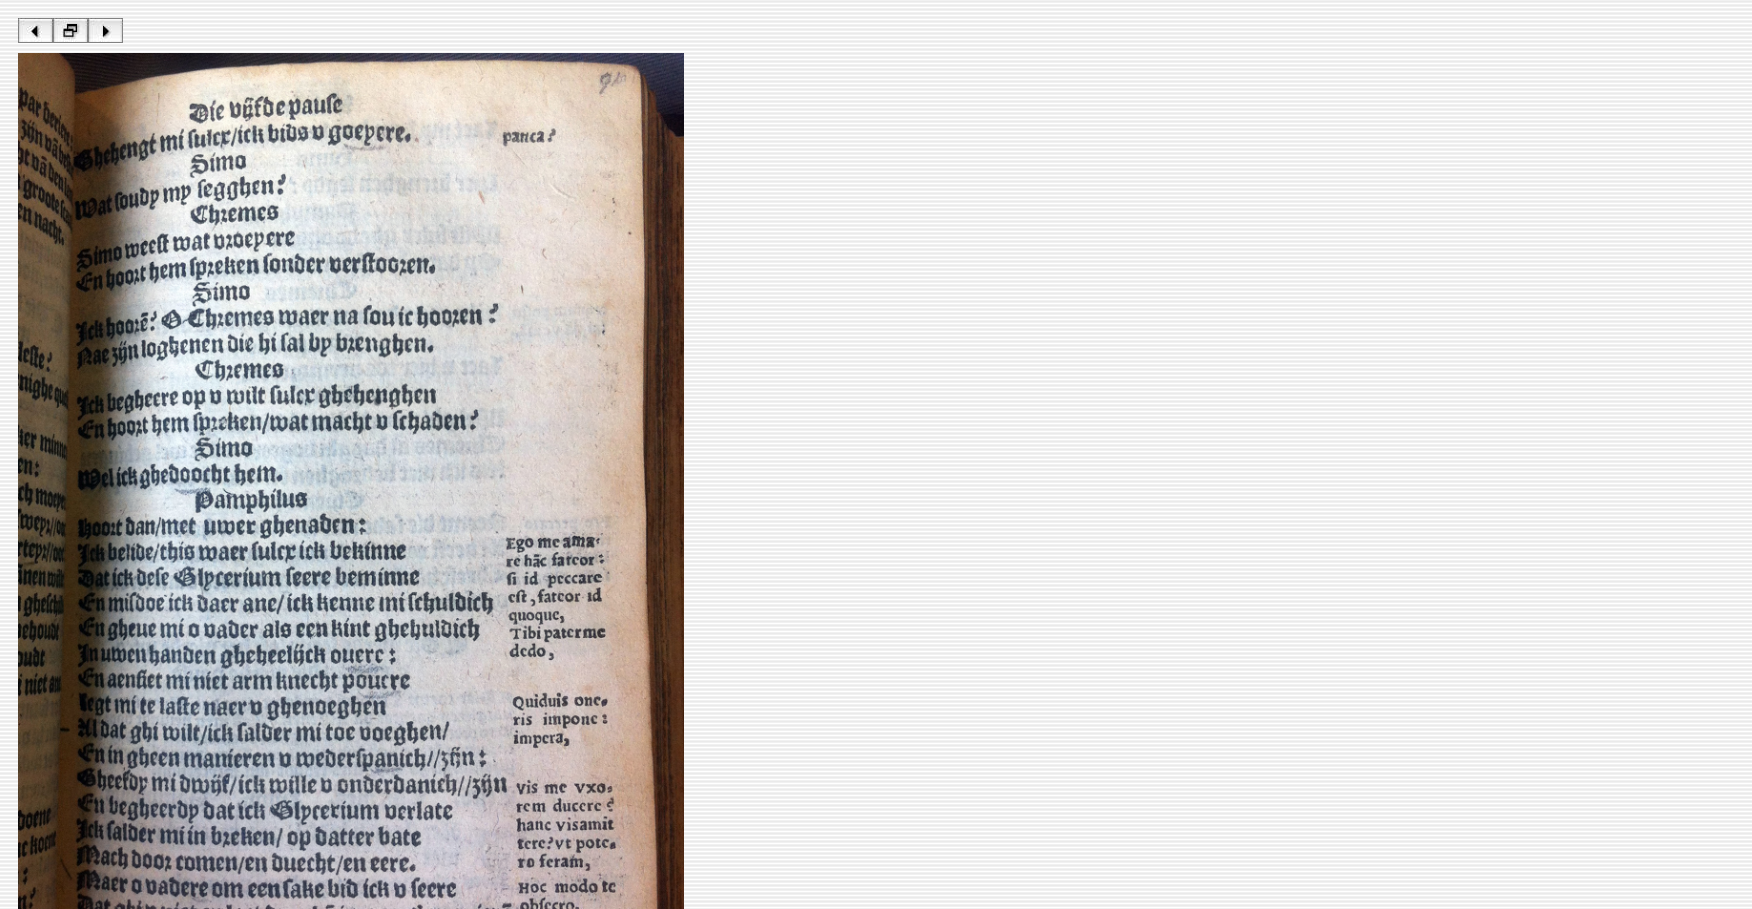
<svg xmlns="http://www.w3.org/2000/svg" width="1752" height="909">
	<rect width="100%" height="100%" fill="#FFFFFF" />
	<image x="0" y="0" width="1752" height="909" href="assets/img1.png" />
	<image x="18" y="18" width="35" height="25" href="assets/img2.png" />
	<image x="53" y="18" width="35" height="25" href="assets/img3.png" />
	<image x="88" y="18" width="35" height="25" href="assets/img4.png" />
	<image x="18" y="53" width="666" height="856" href="assets/img5.png" />
</svg>
